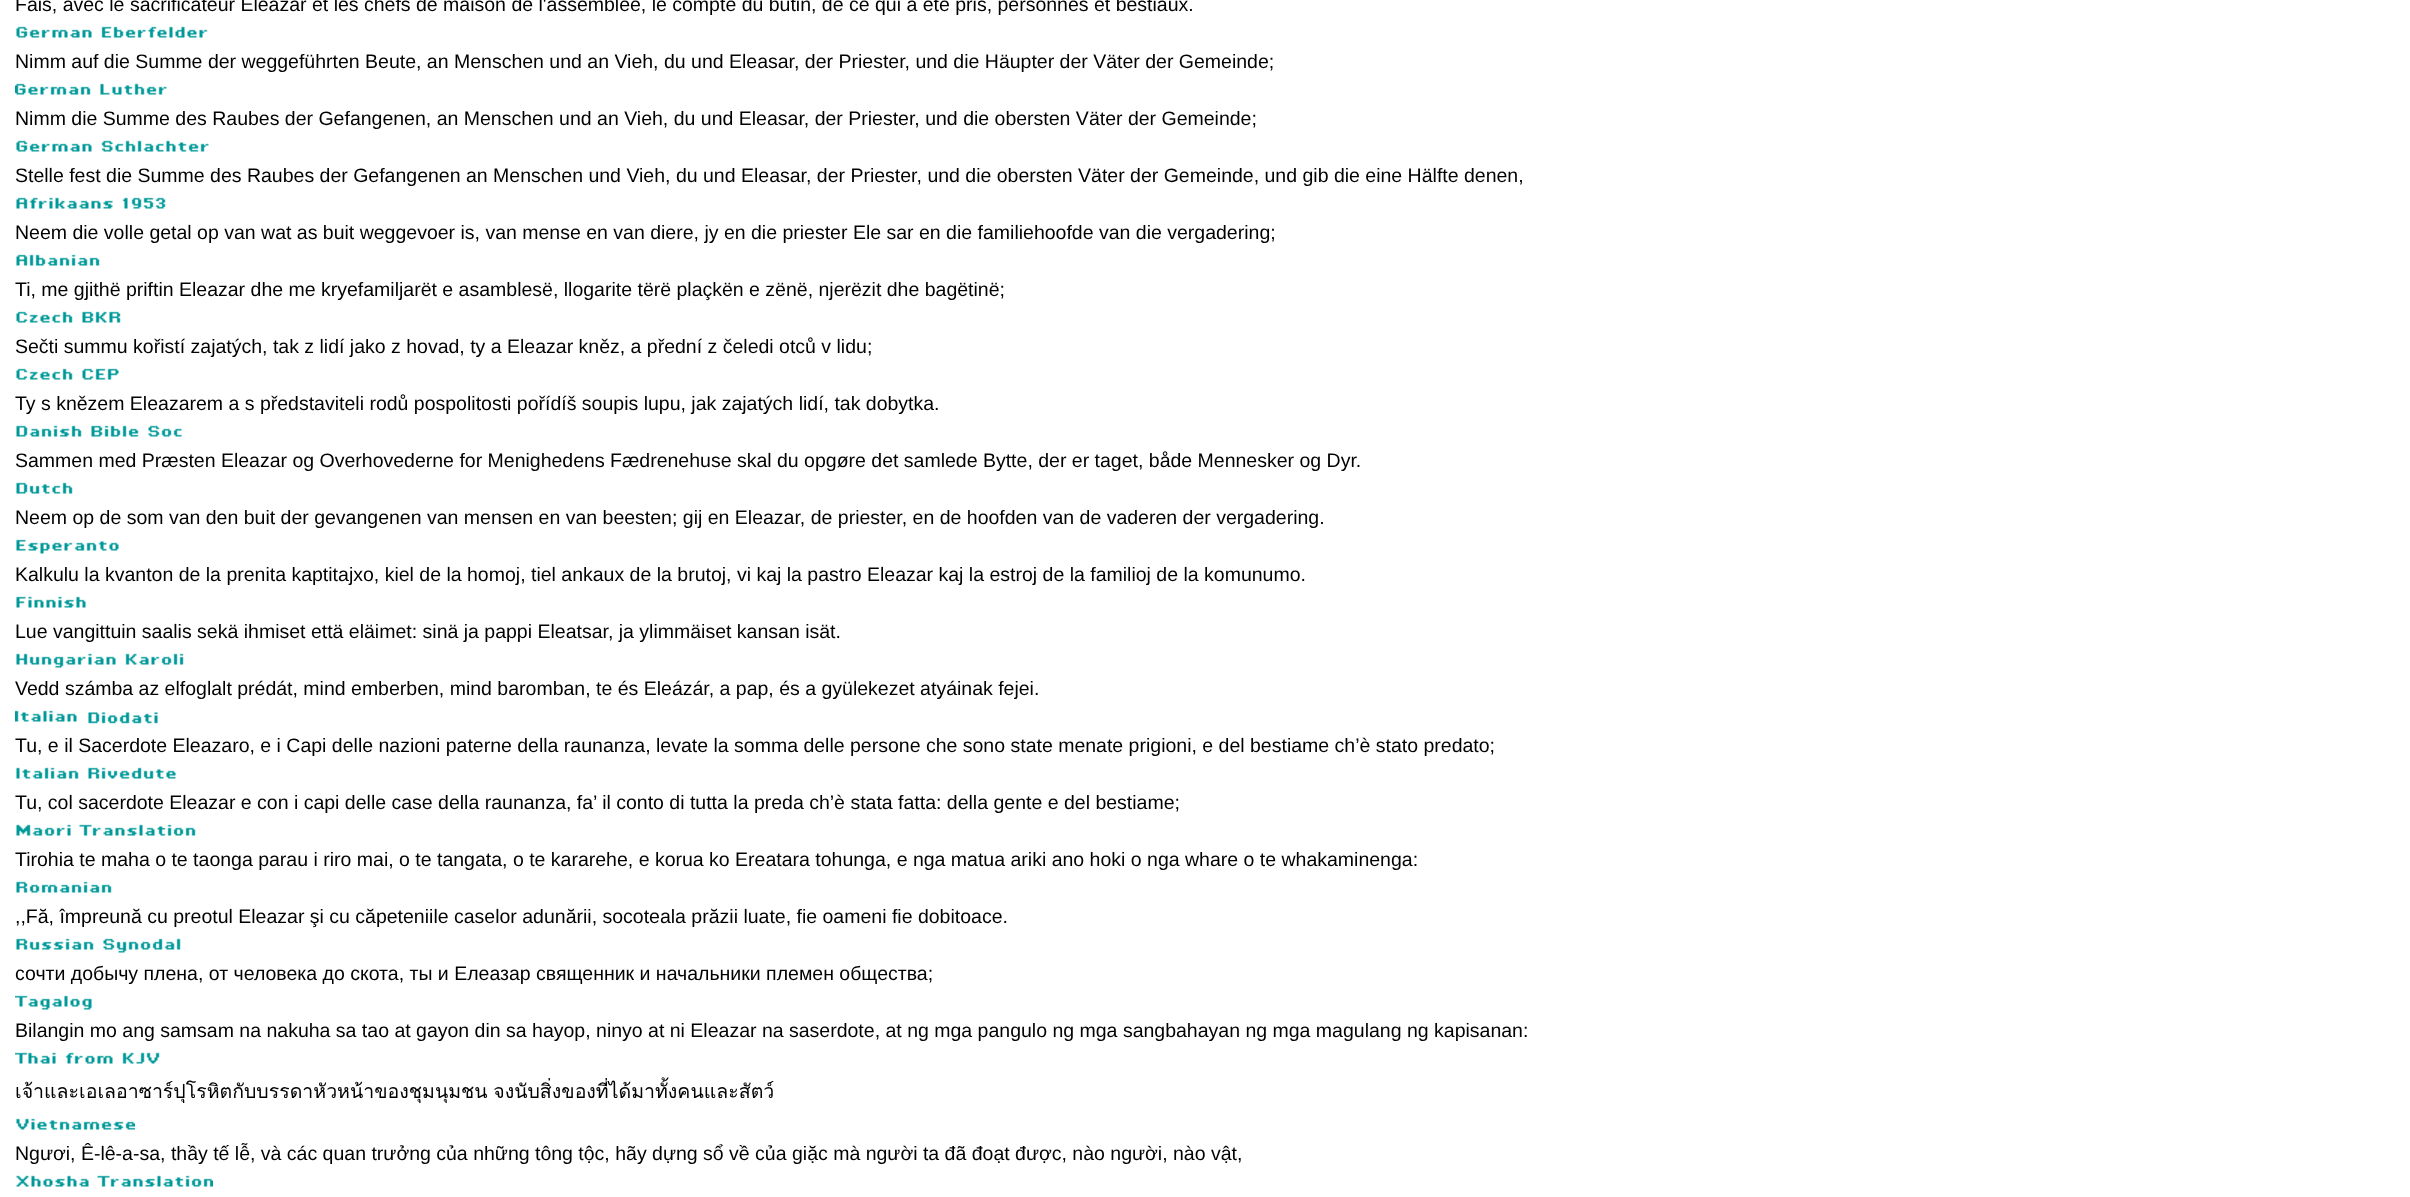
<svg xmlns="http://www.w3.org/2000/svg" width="2410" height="1197">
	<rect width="100%" height="100%" fill="#FFFFFF" />
	<text x="15" y="11" font-family="Liberation Sans" font-size="19.5" fill="#000000">Fais, avec le sacrificateur Eléazar et les chefs de maison de l'assemblée, le compte du butin, de ce qui a été pris, personnes et bestiaux.</text>
	<image x="16" y="26" width="192" height="12" href="assets/img1.png" />
	<text x="15" y="68" font-family="Liberation Sans" font-size="19.5" fill="#000000">Nimm auf die Summe der weggeführten Beute, an Menschen und an Vieh, du und Eleasar, der Priester, und die Häupter der Väter der Gemeinde;</text>
	<image x="15" y="83" width="152" height="12" href="assets/img2.png" />
	<text x="15" y="125" font-family="Liberation Sans" font-size="19.5" fill="#000000">Nimm die Summe des Raubes der Gefangenen, an Menschen und an Vieh, du und Eleasar, der Priester, und die obersten Väter der Gemeinde;</text>
	<image x="16" y="140" width="193" height="12" href="assets/img3.png" />
	<text x="15" y="182" font-family="Liberation Sans" font-size="19.5" fill="#000000">Stelle fest die Summe des Raubes der Gefangenen an Menschen und Vieh, du und Eleasar, der Priester, und die obersten Väter der Gemeinde, und gib die eine Hälfte denen,</text>
	<image x="16" y="197" width="150" height="12" href="assets/img4.png" />
	<text x="15" y="239" font-family="Liberation Sans" font-size="19.5" fill="#000000">Neem die volle getal op van wat as buit weggevoer is, van mense en van diere, jy en die priester Ele sar en die familiehoofde van die vergadering;</text>
	<image x="16" y="254" width="84" height="12" href="assets/img5.png" />
	<text x="15" y="296" font-family="Liberation Sans" font-size="19.5" fill="#000000">Ti, me gjithë priftin Eleazar dhe me kryefamiljarët e asamblesë, llogarite tërë plaçkën e zënë, njerëzit dhe bagëtinë;</text>
	<image x="16" y="311" width="105" height="12" href="assets/img6.png" />
	<text x="15" y="353" font-family="Liberation Sans" font-size="19.5" fill="#000000">Sečti summu kořistí zajatých, tak z lidí jako z hovad, ty a Eleazar kněz, a přední z čeledi otců v lidu;</text>
	<image x="16" y="368" width="103" height="12" href="assets/img7.png" />
	<text x="15" y="410" font-family="Liberation Sans" font-size="19.5" fill="#000000">Ty s knězem Eleazarem a s představiteli rodů pospolitosti pořídíš soupis lupu, jak zajatých lidí, tak dobytka.</text>
	<image x="16" y="425" width="166" height="12" href="assets/img8.png" />
	<text x="15" y="467" font-family="Liberation Sans" font-size="19.5" fill="#000000">Sammen med Præsten Eleazar og Overhovederne for Menighedens Fædrenehuse skal du opgøre det samlede Bytte, der er taget, både Mennesker og Dyr.</text>
	<image x="16" y="482" width="57" height="12" href="assets/img9.png" />
	<text x="15" y="524" font-family="Liberation Sans" font-size="19.5" fill="#000000">Neem op de som van den buit der gevangenen van mensen en van beesten; gij en Eleazar, de priester, en de hoofden van de vaderen der vergadering.</text>
	<image x="16" y="539" width="103" height="15" href="assets/img10.png" />
	<text x="15" y="581" font-family="Liberation Sans" font-size="19.5" fill="#000000">Kalkulu la kvanton de la prenita kaptitajxo, kiel de la homoj, tiel ankaux de la brutoj, vi kaj la pastro Eleazar kaj la estroj de la familioj de la komunumo.</text>
	<image x="16" y="596" width="70" height="12" href="assets/img11.png" />
	<text x="15" y="638" font-family="Liberation Sans" font-size="19.5" fill="#000000">Lue vangittuin saalis sekä ihmiset että eläimet: sinä ja pappi Eleatsar, ja ylimmäiset kansan isät.</text>
	<image x="16" y="653" width="168" height="15" href="assets/img12.png" />
	<text x="15" y="695" font-family="Liberation Sans" font-size="19.5" fill="#000000">Vedd számba az elfoglalt prédát, mind emberben, mind baromban, te és Eleázár, a pap, és a gyülekezet atyáinak fejei.</text>
	<image x="15" y="710" width="143" height="14" href="assets/img13.png" />
	<text x="15" y="752" font-family="Liberation Sans" font-size="19.5" fill="#000000">Tu, e il Sacerdote Eleazaro, e i Capi delle nazioni paterne della raunanza, levate la somma delle persone che sono state menate prigioni, e del bestiame ch’è stato predato;</text>
	<image x="16" y="767" width="160" height="12" href="assets/img14.png" />
	<text x="15" y="809" font-family="Liberation Sans" font-size="19.5" fill="#000000">Tu, col sacerdote Eleazar e con i capi delle case della raunanza, fa’ il conto di tutta la preda ch’è stata fatta: della gente e del bestiame;</text>
	<image x="16" y="824" width="180" height="12" href="assets/img15.png" />
	<text x="15" y="866" font-family="Liberation Sans" font-size="19.5" fill="#000000">Tirohia te maha o te taonga parau i riro mai, o te tangata, o te kararehe, e korua ko Ereatara tohunga, e nga matua ariki ano hoki o nga whare o te whakaminenga:</text>
	<image x="16" y="881" width="96" height="12" href="assets/img16.png" />
	<text x="15" y="923" font-family="Liberation Sans" font-size="19.5" fill="#000000">,,Fă, împreună cu preotul Eleazar şi cu căpeteniile caselor adunării, socoteala prăzii luate, fie oameni fie dobitoace.</text>
	<image x="16" y="938" width="165" height="15" href="assets/img17.png" />
	<text x="15" y="980" font-family="Liberation Sans" font-size="19.5" fill="#000000">сочти добычу плена, от человека до скота, ты и Елеазар священник и начальники племен общества;</text>
	<image x="15" y="995" width="77" height="15" href="assets/img18.png" />
	<text x="15" y="1037" font-family="Liberation Sans" font-size="19.5" fill="#000000">Bilangin mo ang samsam na nakuha sa tao at gayon din sa hayop, ninyo at ni Eleazar na saserdote, at ng mga pangulo ng mga sangbahayan ng mga magulang ng kapisanan:</text>
	<image x="15" y="1052" width="145" height="12" href="assets/img19.png" />
	<text x="15" y="1098" word-spacing="-1" font-family="Loma" font-size="19.5" fill="#000000">เจ้าและเอเลอาซาร์ปุโรหิตกับบรรดาหัวหน้าของชุมนุมชน จงนับสิ่งของที่ได้มาทั้งคนและสัตว์</text>
	<image x="16" y="1118" width="119" height="12" href="assets/img20.png" />
	<text x="15" y="1160" font-family="Liberation Sans" font-size="19.5" fill="#000000">Ngươi, Ê-lê-a-sa, thầy tế lễ, và các quan trưởng của những tông tộc, hãy dựng sổ về của giặc mà người ta đã đoạt được, nào người, nào vật,</text>
	<image x="16" y="1175" width="197" height="12" href="assets/img21.png" />
</svg>
